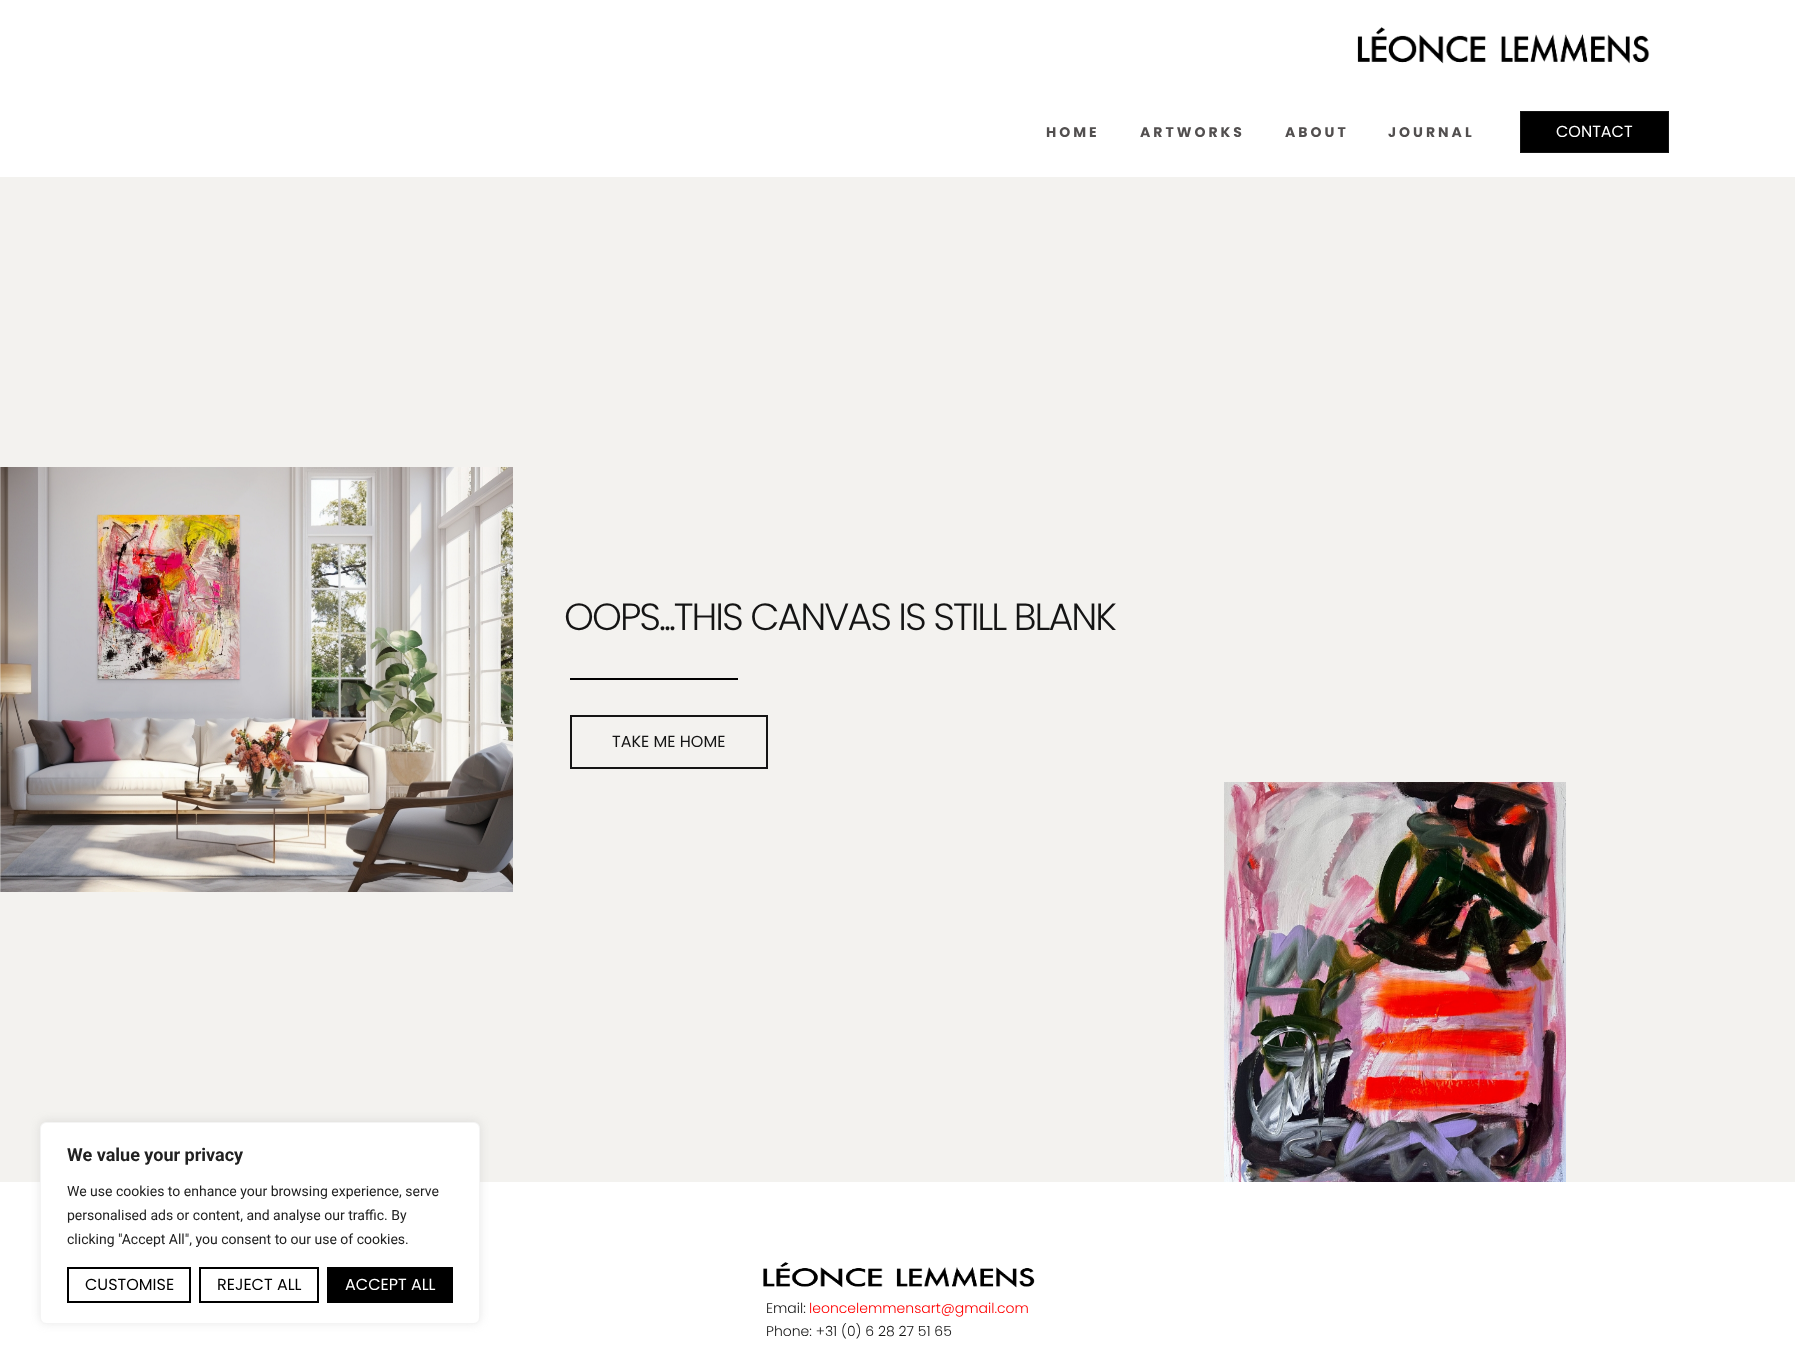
<svg xmlns="http://www.w3.org/2000/svg" width="1795" height="1364">
	<rect width="100%" height="100%" fill="#FFFFFF" />
	<image x="1357" y="27" width="293" height="37" href="assets/img1.png" />
	<g font-family="Poppins" font-size="14" font-weight="700" letter-spacing="3" fill="#524F4F">
		<text x="1046" y="137">HOME</text>
		<text x="1140" y="137">ARTWORKS</text>
		<text x="1285" y="137">ABOUT</text>
		<text x="1388" y="137">JOURNAL</text>
	</g>
	<rect x="1520.5" y="111.5" width="148" height="41" fill="#000000" stroke="#141414" />
	<text x="1556" y="137" font-family="Poppins" font-size="16" fill="#FFFFFF">CONTACT</text>
	<rect x="0" y="177" width="1795" height="1005" fill="#F3F2EF" />
	<image x="0" y="467" width="513" height="425" href="assets/img2.png" />
	<text x="564" y="630" font-family="Poppins" font-size="38" font-weight="300" letter-spacing="-2" fill="#141414">OOPS...THIS CANVAS IS STILL BLANK</text>
	<rect x="570" y="678" width="168" height="2" fill="#000000" />
	<rect x="571" y="716" width="196" height="52" fill="none" stroke="#141414" stroke-width="2" />
	<text x="612" y="747" font-family="Poppins" font-size="16" fill="#141414">TAKE ME HOME</text>
	<image x="1224" y="782" width="342" height="400" href="assets/img3.png" />
	<rect x="40" y="1121" width="440" height="202" rx="6" fill="#ACABAB" fill-opacity="0.3" filter="blur(5px)" />
	<rect x="40.5" y="1122.5" width="439" height="201" rx="5.5" fill="#FFFFFF" stroke="#F4F4F4" />
	<text x="67" y="1161" font-family="Roboto" font-size="18" font-weight="700" fill="#212121">We value your privacy</text>
	<g font-family="Roboto" font-size="14" fill="#212121">
		<text x="67" y="1196">We use cookies to enhance your browsing experience, serve</text>
		<text x="67" y="1220">personalised ads or content, and analyse our traffic. By</text>
		<text x="67" y="1244">clicking "Accept All", you consent to our use of cookies.</text>
	</g>
	<rect x="68" y="1268" width="122" height="34" fill="none" stroke="#000000" stroke-width="2" />
	<text x="85" y="1290" font-family="Poppins" font-size="16" fill="#000000">CUSTOMISE</text>
	<rect x="200" y="1268" width="118" height="34" fill="none" stroke="#000000" stroke-width="2" />
	<text x="217" y="1290" font-family="Poppins" font-size="16" fill="#000000">REJECT ALL</text>
	<rect x="327" y="1267" width="126" height="36" fill="#000000" />
	<text x="345" y="1290" font-family="Poppins" font-size="16" fill="#FFFFFF">ACCEPT ALL</text>
	<image x="763" y="1262" width="272" height="26" href="assets/img4.png" />
	<text x="766" y="1313" font-family="Poppins" font-size="14" font-weight="300" fill="#141414">Email:</text>
	<text x="809" y="1313" font-family="Poppins" font-size="14" font-weight="300" fill="#FF0000">leoncelemmensart@gmail.com</text>
	<text x="766" y="1336" font-family="Poppins" font-size="14" font-weight="300" fill="#141414">Phone: +31 (0) 6 28 27 51 65</text>
</svg>
